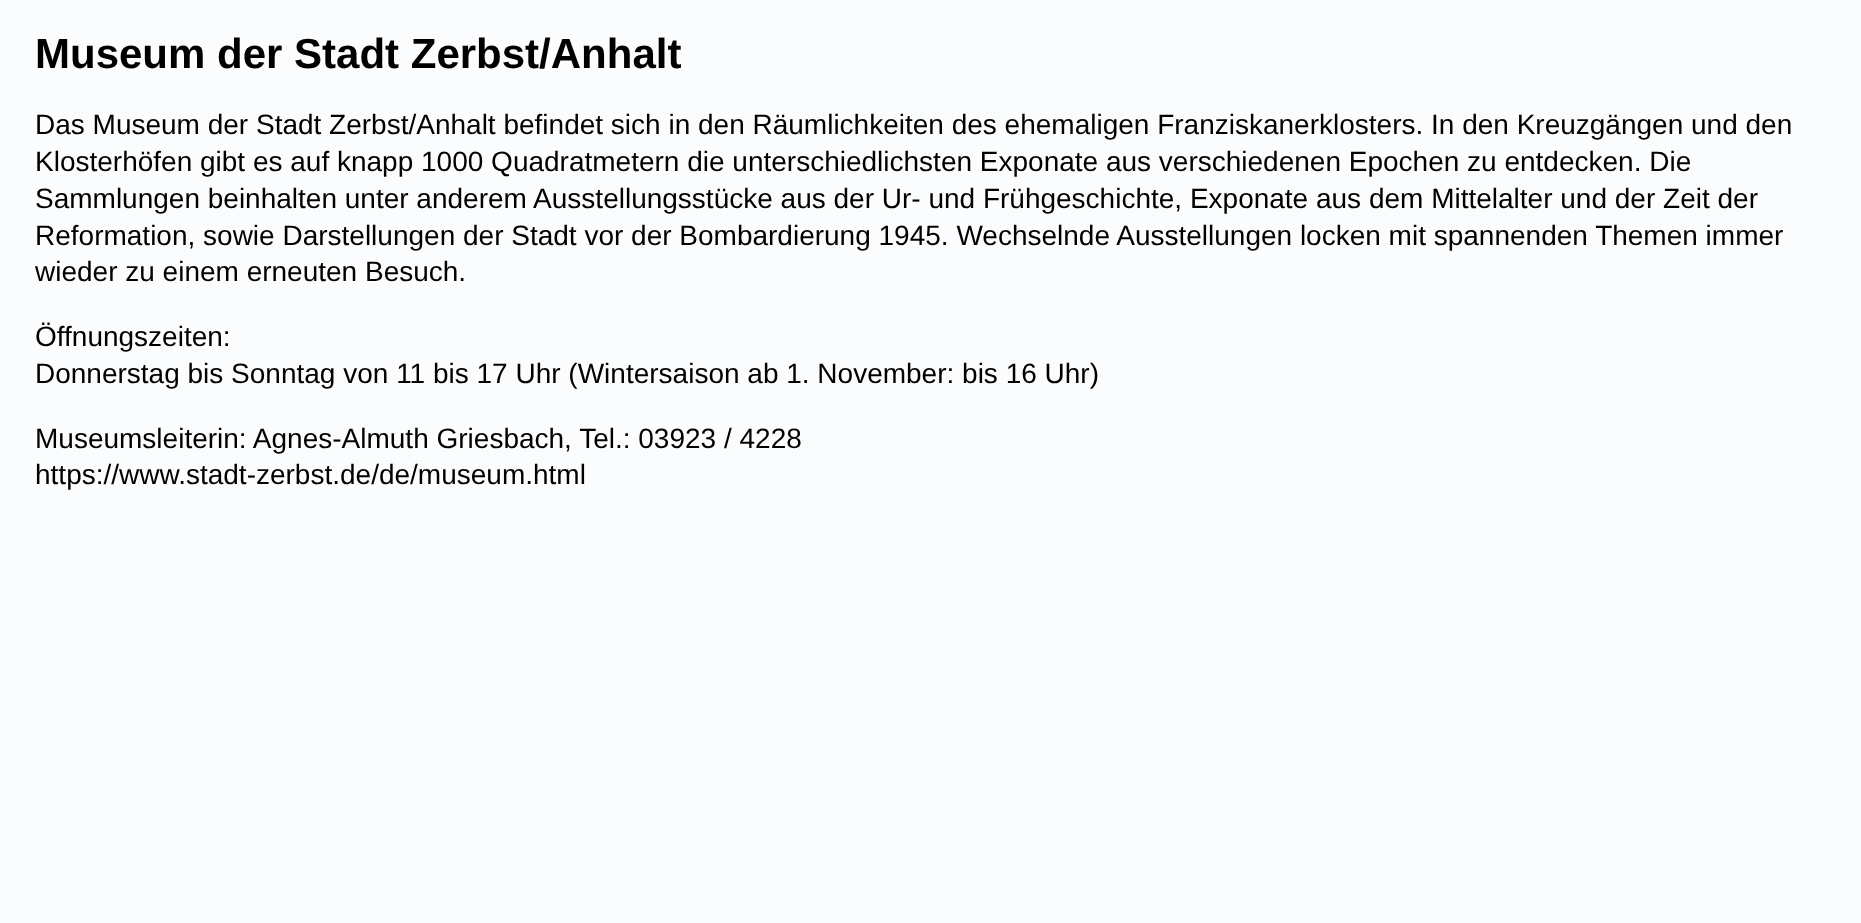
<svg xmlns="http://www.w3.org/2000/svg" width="1861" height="923">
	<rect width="100%" height="100%" fill="#FAFCFD" />
	<text x="35" y="68" font-family="Liberation Sans" font-size="42" font-weight="700" fill="#000000">Museum der Stadt Zerbst/Anhalt</text>
	<g font-family="Liberation Sans" font-size="28" fill="#000000">
		<text x="35" y="134">Das Museum der Stadt Zerbst/Anhalt befindet sich in den Räumlichkeiten des ehemaligen Franziskanerklosters. In den Kreuzgängen und den</text>
		<text x="35" y="171">Klosterhöfen gibt es auf knapp 1000 Quadratmetern die unterschiedlichsten Exponate aus verschiedenen Epochen zu entdecken. Die</text>
		<text x="35" y="208">Sammlungen beinhalten unter anderem Ausstellungsstücke aus der Ur- und Frühgeschichte, Exponate aus dem Mittelalter und der Zeit der</text>
		<text x="35" y="245">Reformation, sowie Darstellungen der Stadt vor der Bombardierung 1945. Wechselnde Ausstellungen locken mit spannenden Themen immer</text>
		<text x="35" y="281">wieder zu einem erneuten Besuch.</text>
		<text x="35" y="346">Öffnungszeiten:</text>
		<text x="35" y="383">Donnerstag bis Sonntag von 11 bis 17 Uhr (Wintersaison ab 1. November: bis 16 Uhr)</text>
		<text x="35" y="448">Museumsleiterin: Agnes-Almuth Griesbach, Tel.: 03923 / 4228</text>
		<text x="35" y="484">https://www.stadt-zerbst.de/de/museum.html</text>
	</g>
</svg>
